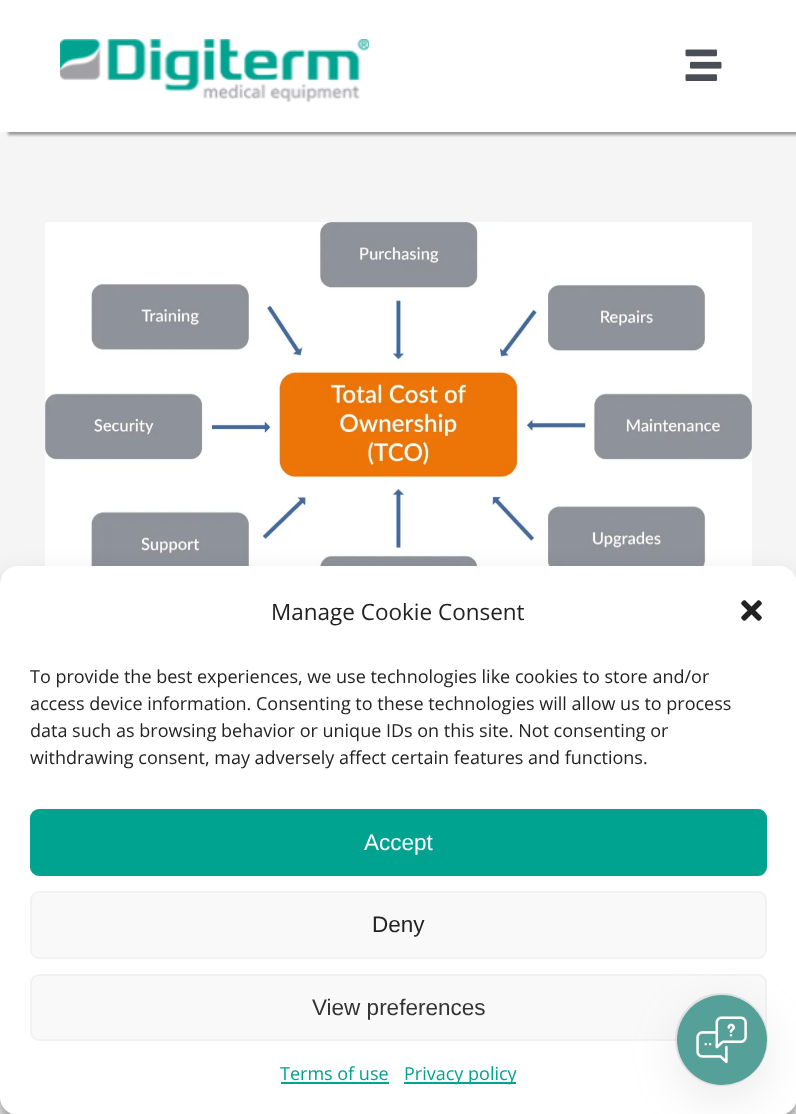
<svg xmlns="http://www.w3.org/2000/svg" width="796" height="1114">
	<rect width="100%" height="100%" fill="#F5F5F5" />
	<rect x="8" y="3" width="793" height="132" fill="#999999" filter="blur(1.5px)" />
	<rect x="0" y="0" width="796" height="132" fill="#FFFFFF" />
	<image x="60" y="39" width="309" height="64" href="assets/img1.png" />
	<image x="685" y="49" width="37" height="32" href="assets/img2.png" />
	<image x="45" y="222" width="707" height="344" href="assets/img3.png" />
	<rect x="0" y="575" width="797" height="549" rx="18" fill="#000000" fill-opacity="0.23" filter="blur(4.5px)" />
	<rect x="0" y="581" width="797" height="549" rx="18" fill="#000000" fill-opacity="0.19" filter="blur(15px)" />
	<rect x="0" y="566" width="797" height="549" rx="18" fill="#FFFFFF" />
	<text x="271" y="620" font-family="Open Sans" font-size="22.5" fill="#222222">Manage Cookie Consent</text>
	<image x="741" y="600" width="21" height="21" href="assets/img4.png" />
	<g font-family="Open Sans" font-size="18" fill="#222222">
		<text x="30" y="683">To provide the best experiences, we use technologies like cookies to store and/or</text>
		<text x="30" y="710">access device information. Consenting to these technologies will allow us to process</text>
		<text x="30" y="737">data such as browsing behavior or unique IDs on this site. Not consenting or</text>
		<text x="30" y="764">withdrawing consent, may adversely affect certain features and functions.</text>
	</g>
	<rect x="31" y="810" width="735" height="65" rx="8" fill="#00A290" stroke="#00A290" stroke-width="2" />
	<text x="364" y="850" font-family="Liberation Sans" font-size="22.5" fill="#FFFFFF">Accept</text>
	<rect x="31" y="892" width="735" height="66" rx="8" fill="#F9F9F9" stroke="#F2F2F2" stroke-width="2" />
	<text x="372" y="932" font-family="Liberation Sans" font-size="22.5" fill="#222222">Deny</text>
	<rect x="31" y="975" width="735" height="65" rx="8" fill="#F9F9F9" stroke="#F2F2F2" stroke-width="2" />
	<text x="312" y="1015" font-family="Liberation Sans" font-size="22.5" fill="#333333">View preferences</text>
	<text x="280" y="1080" font-family="Open Sans" font-size="18" fill="#00A290">Terms of use</text>
	<rect x="281" y="1082" width="108" height="2" fill="#00A290" />
	<rect x="404" y="1082" width="112" height="2" fill="#00A290" />
	<text x="404" y="1080" font-family="Open Sans" font-size="18" fill="#00A290">Privacy policy</text>
	<circle cx="721.5" cy="1039.5" r="45.5" fill="none" stroke="#969696" stroke-opacity="0.2" stroke-width="2" />
	<rect x="677" y="1010" width="90" height="90" rx="45" fill="#969696" fill-opacity="0.2" filter="blur(22.5px)" />
	<circle cx="722" cy="1040" r="45" fill="#55A098" />
	<image x="696" y="1016" width="51" height="48" href="assets/img5.png" />
</svg>
